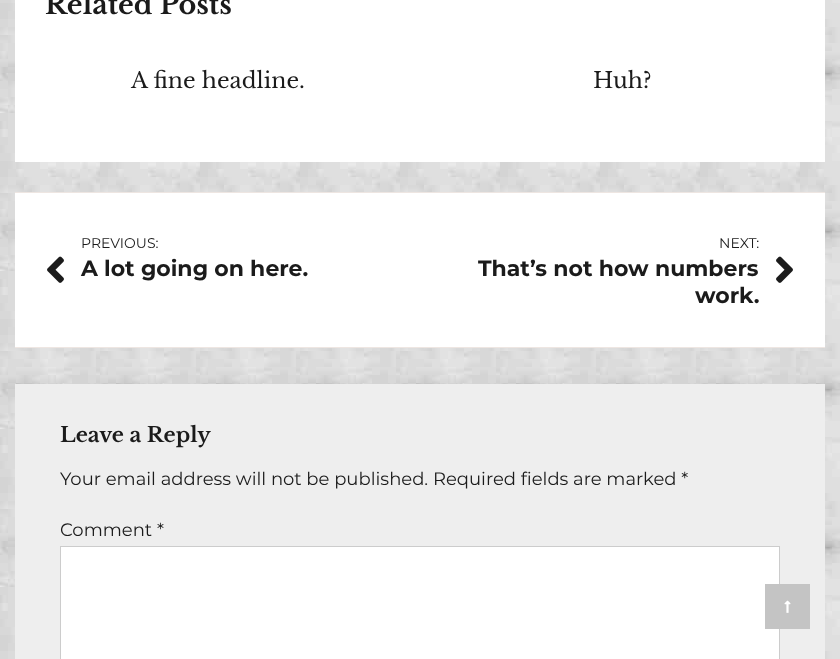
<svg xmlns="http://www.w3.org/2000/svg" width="840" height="659">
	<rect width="100%" height="100%" fill="#FFFFFF" />
	<image x="0" y="0" width="840" height="659" href="assets/img1.png" />
	<rect x="15" y="0" width="810" height="162" fill="#FFFFFF" />
	<text x="45" y="14" font-family="Libre Baskerville" font-size="27" font-weight="700" fill="#1B1B1B">Related Posts</text>
	<g font-family="Libre Baskerville" font-size="22" fill="#1B1B1B">
		<text x="131" y="88">A fine headline.</text>
		<text x="593" y="88">Huh?</text>
	</g>
	<rect x="15" y="193" width="810" height="154" fill="#FFFFFF" />
	<rect x="15" y="192" width="810" height="1" fill="#EEE6E2" />
	<rect x="15" y="347" width="810" height="1" fill="#EEE6E2" />
	<text x="81" y="248" font-family="Montserrat" font-size="14" fill="#1B1B1B">PREVIOUS:</text>
	<image x="47" y="256" width="17" height="27" href="assets/img2.png" />
	<text x="81" y="276" font-family="Montserrat" font-size="22" font-weight="700" fill="#1B1B1B">A lot going on here.</text>
	<text x="719" y="248" font-family="Montserrat" font-size="14" fill="#1B1B1B">NEXT:</text>
	<image x="776" y="256" width="17" height="27" href="assets/img3.png" />
	<g font-family="Montserrat" font-size="22" font-weight="700" fill="#1B1B1B">
		<text x="478" y="276">That’s not how numbers</text>
		<text x="695" y="303">work.</text>
	</g>
	<rect x="15" y="384" width="810" height="275" fill="#EEEEEE" />
	<text x="60" y="442" font-family="Libre Baskerville" font-size="20.75" font-weight="700" fill="#1B1B1B">Leave a Reply</text>
	<g font-family="Montserrat" font-size="18" fill="#1B1B1B">
		<text x="60" y="485">Your email address will not be published. Required fields are marked *</text>
		<text x="60" y="536">Comment *</text>
	</g>
	<rect x="60.5" y="546.5" width="719" height="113" fill="#FFFFFF" stroke="#CCCCCC" />
	<rect x="765" y="584" width="45" height="45" fill="#C4C4C4" />
	<image x="784" y="600" width="7" height="13" href="assets/img4.png" />
</svg>
